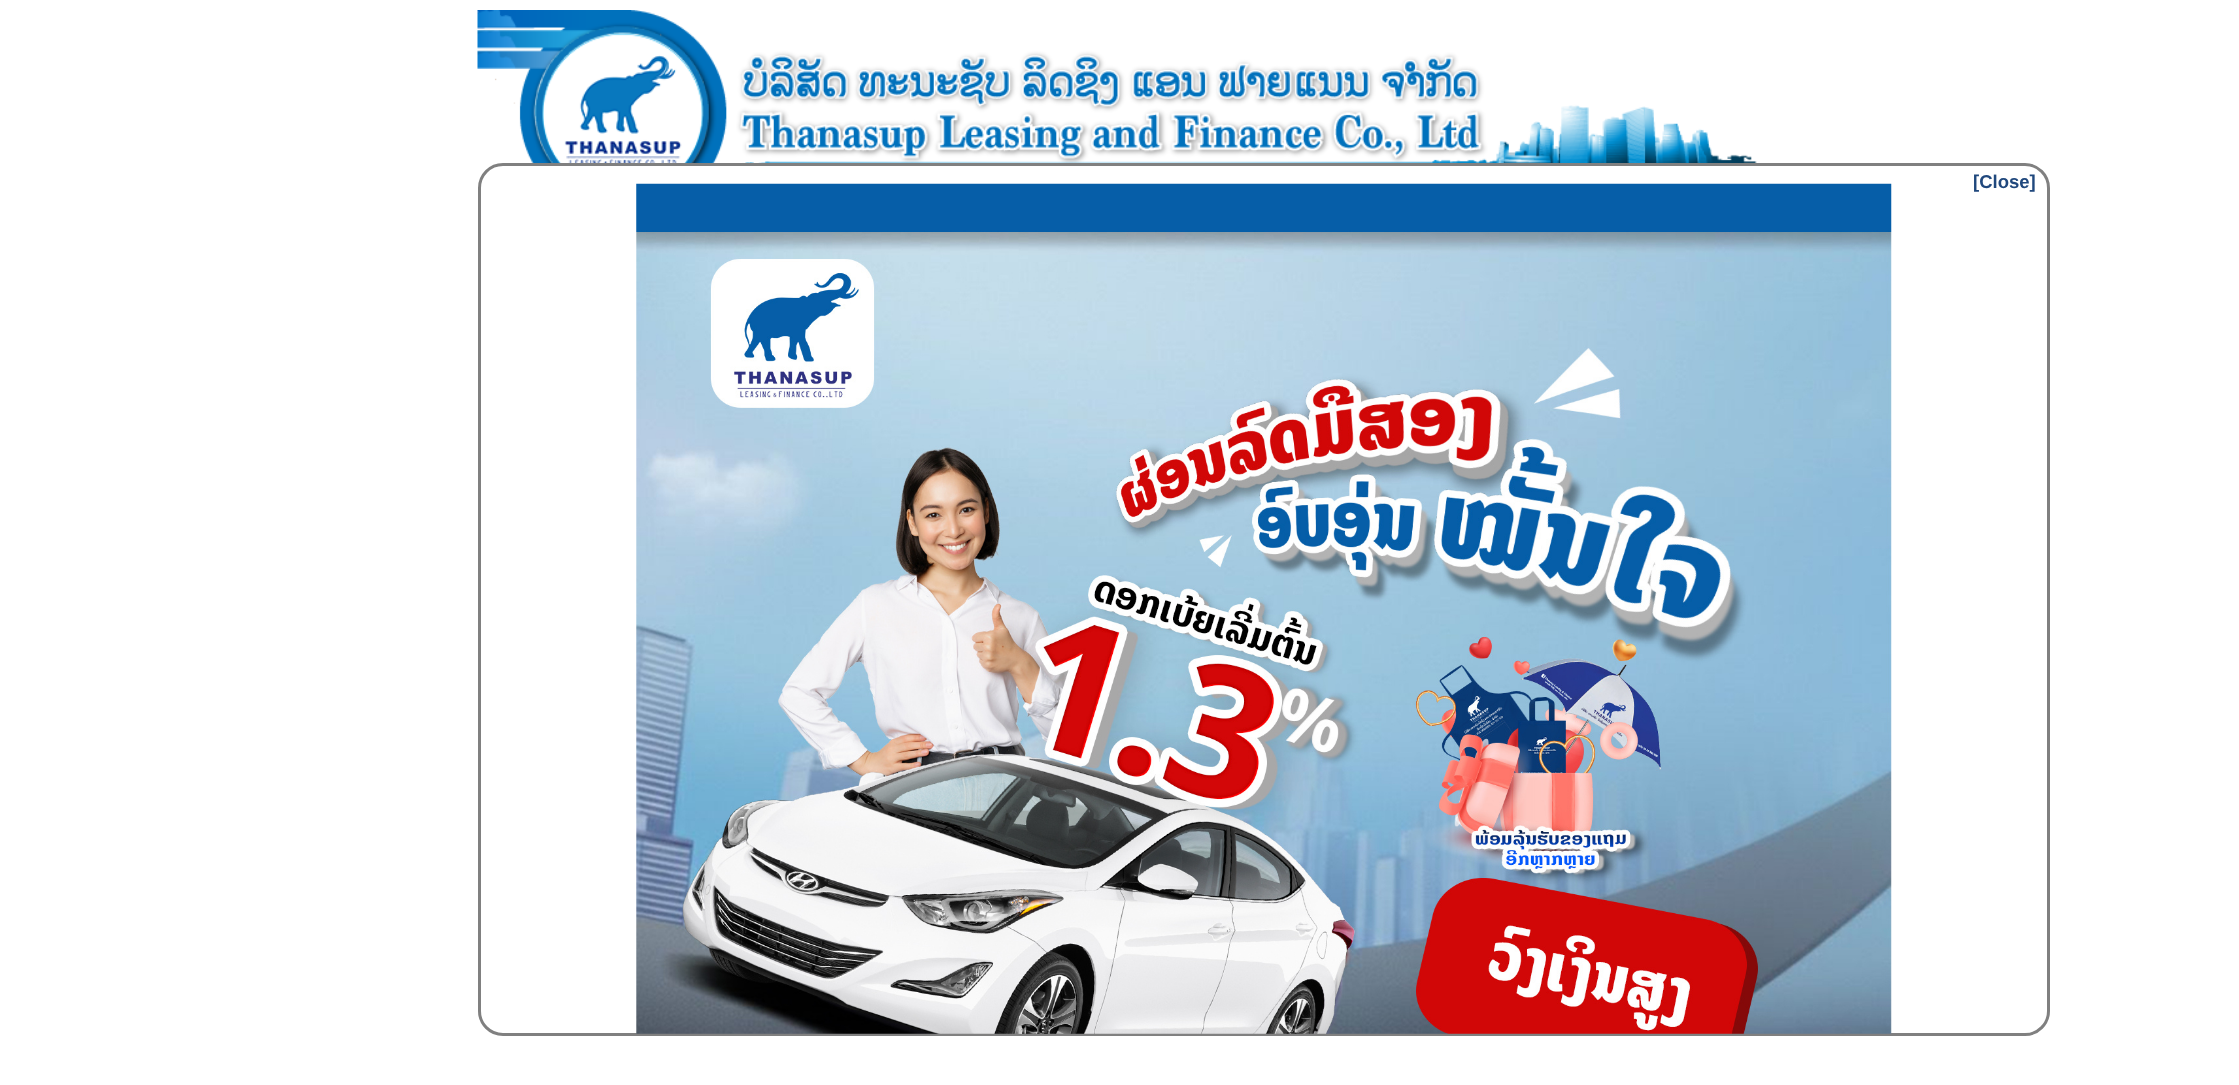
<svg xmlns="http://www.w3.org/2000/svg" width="2239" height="1085">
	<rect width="100%" height="100%" fill="#FFFFFF" />
	<image x="477" y="10" width="1280" height="153" href="assets/img1.png" />
	<rect x="479.5" y="164.5" width="1569" height="870" rx="23.5" fill="none" stroke="#808080" stroke-width="3" />
	<image x="636" y="183" width="1256" height="851" href="assets/img2.png" />
	<text x="1973" y="188" font-family="Liberation Sans" font-size="18.5" font-weight="700" fill="#20487D">[Close]</text>
</svg>
